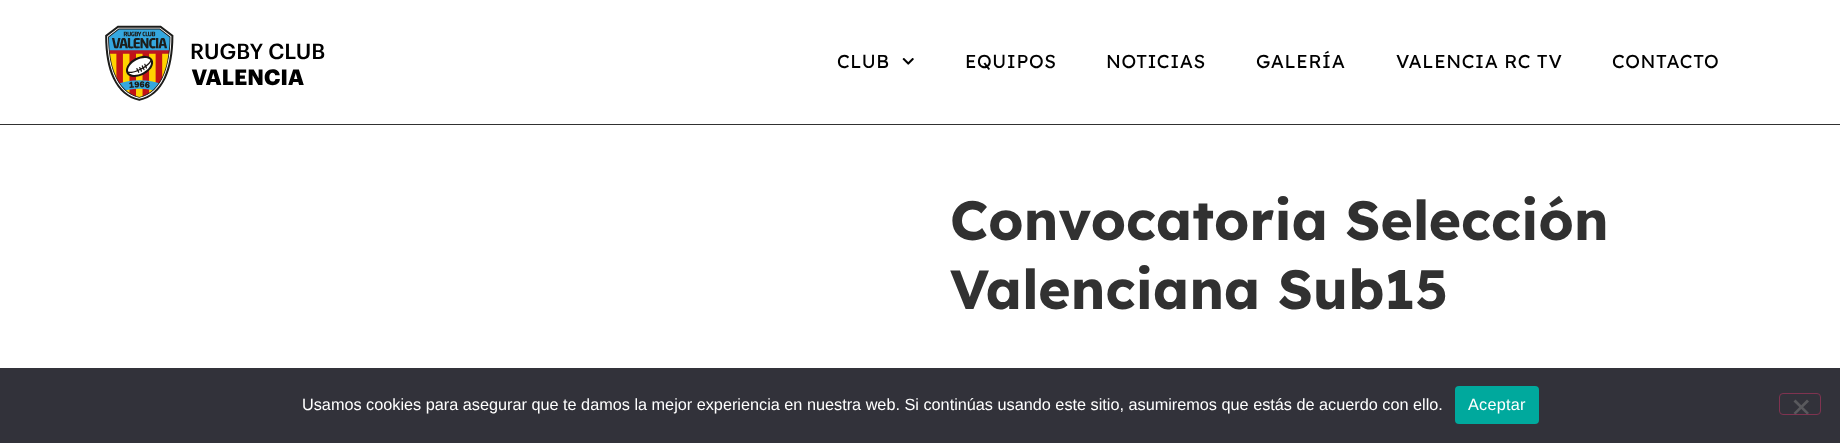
<svg xmlns="http://www.w3.org/2000/svg" width="1840" height="443">
	<rect width="100%" height="100%" fill="#FFFFFF" />
	<rect x="0" y="124" width="1840" height="1" fill="#313131" />
	<image x="105" y="25" width="220" height="76" href="assets/img1.png" />
	<text x="837" y="68" font-family="Lexend" font-size="18.75" letter-spacing="0.6" fill="#000000">CLUB</text>
	<image x="902" y="58" width="12" height="7" href="assets/img2.png" />
	<g font-family="Lexend" font-size="18.75" letter-spacing="0.6" fill="#000000">
		<text x="965" y="68">EQUIPOS</text>
		<text x="1106" y="68">NOTICIAS</text>
		<text x="1256" y="68">GALERÍA</text>
		<text x="1396" y="68">VALENCIA RC TV</text>
		<text x="1612" y="68">CONTACTO</text>
	</g>
	<g font-family="Lexend" font-size="55" font-weight="700" fill="#313131">
		<text x="950" y="240">Convocatoria Selección</text>
		<text x="950" y="309">Valenciana Sub15</text>
	</g>
	<rect x="0" y="368" width="1840" height="75" fill="#32323A" />
	<text x="302" y="410" font-family="Liberation Sans" font-size="16.25" fill="#FFFFFF">Usamos cookies para asegurar que te damos la mejor experiencia en nuestra web. Si continúas usando este sitio, asumiremos que estás de acuerdo con ello.</text>
	<rect x="1455" y="386" width="84" height="38" rx="4" fill="#00A99D" />
	<text x="1468" y="410" font-family="Liberation Sans" font-size="16.25" letter-spacing="0.25" fill="#FFFFFF">Aceptar</text>
	<rect x="1779.5" y="393.5" width="41" height="21" rx="3.5" fill="none" stroke="#7F3350" />
	<path d="M1807 399.5L1809 401.5L1795.5 414.5L1793.5 413Z" fill="#59595D" />
	<path d="M1793.5 401.5L1795.5 399.5L1809 413L1807 414.5Z" fill="#59595D" />
</svg>
